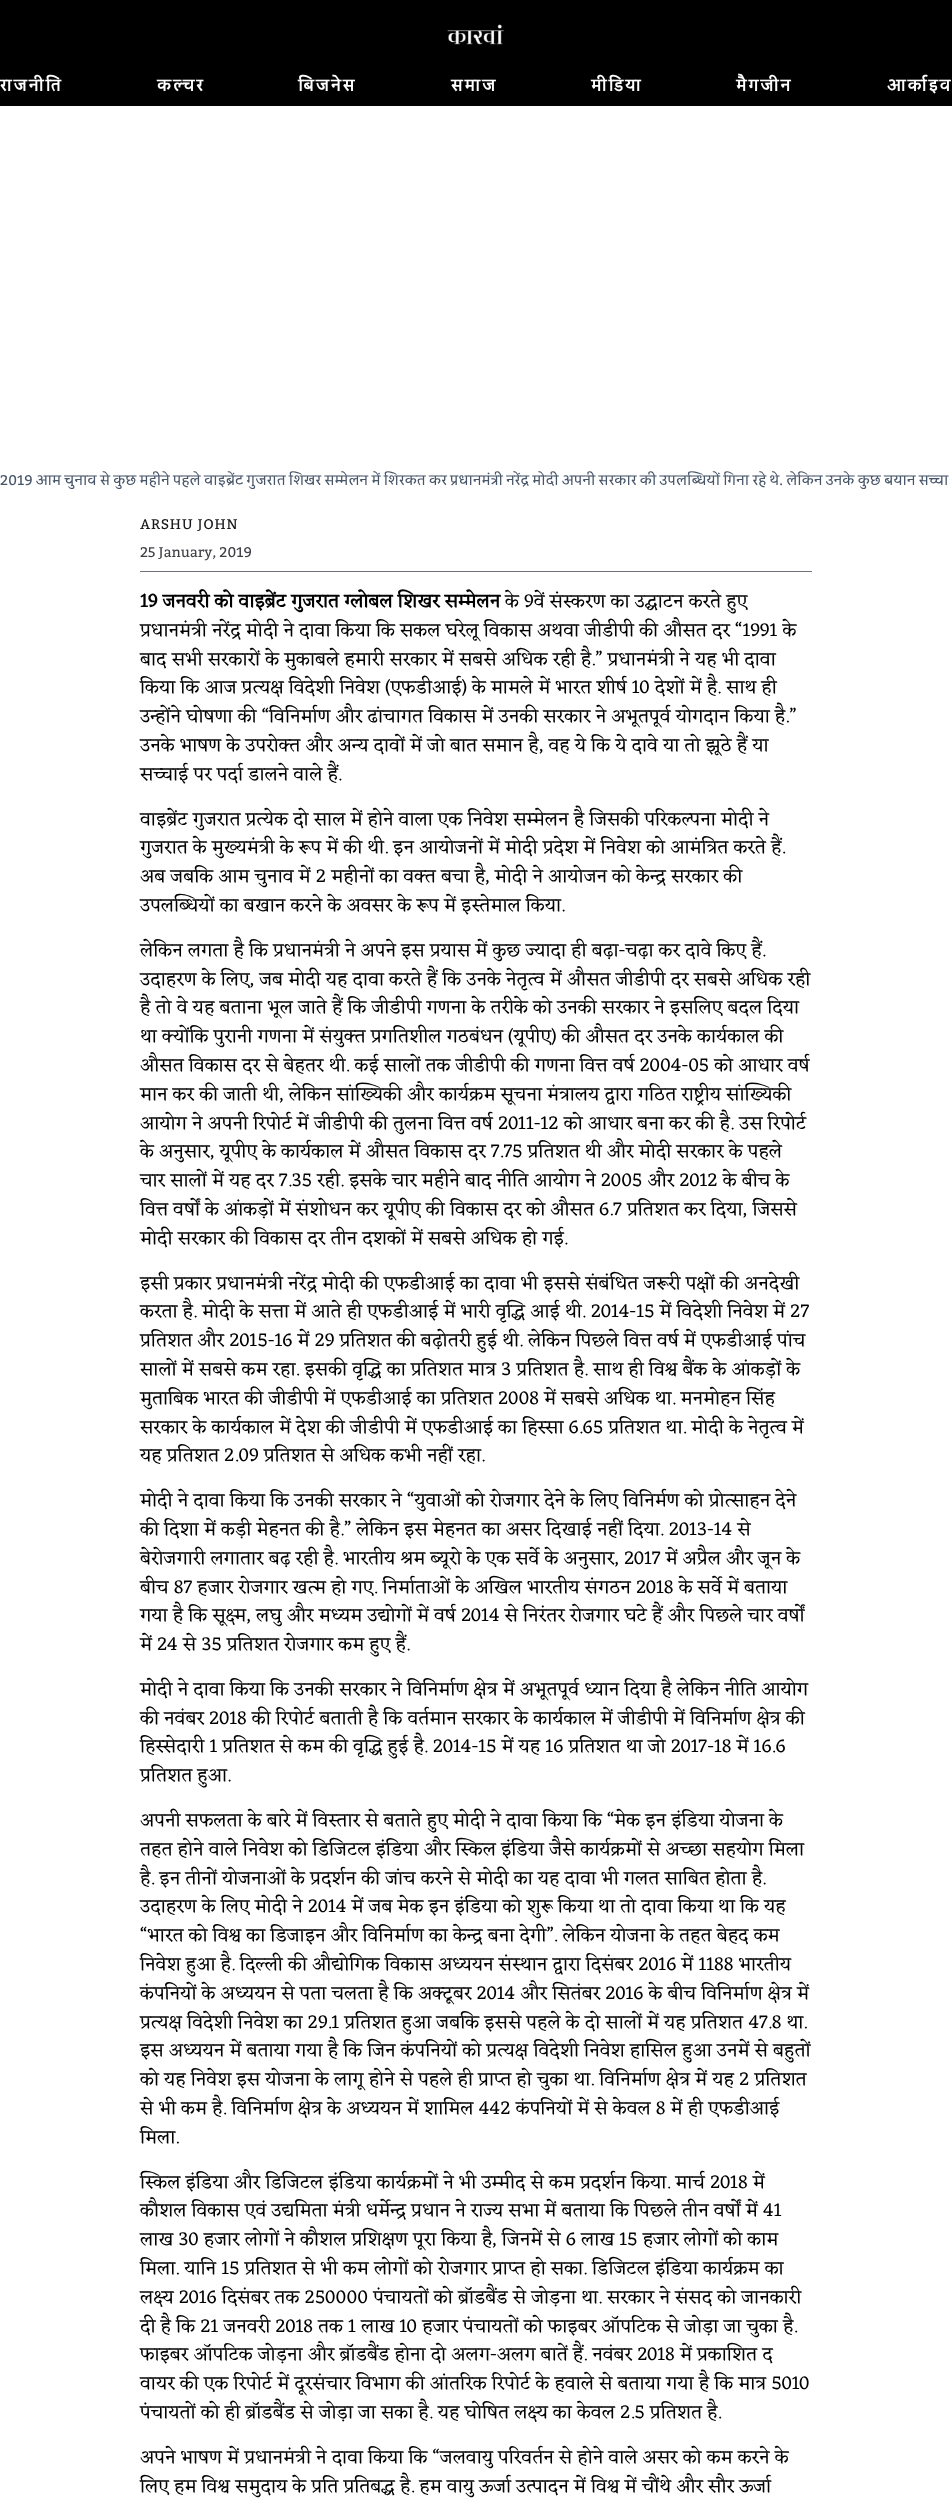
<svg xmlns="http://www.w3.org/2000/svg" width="952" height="2500">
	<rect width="100%" height="100%" fill="#FFFFFF" />
	<rect x="0" y="0" width="952" height="106" fill="#000000" />
	<image x="447" y="24" width="57" height="21" href="assets/img1.png" />
	<g font-family="Kadwa" font-size="16" font-weight="700" letter-spacing="2" fill="#FFFFFF">
		<text x="0" y="91">राजनीति</text>
		<text x="157" y="91">कल्चर</text>
		<text x="298" y="91">बिजनेस</text>
		<text x="451" y="91">समाज</text>
		<text x="591" y="91">मीडिया</text>
		<text x="736" y="91">मैगजीन</text>
		<text x="887" y="91">आर्काइव</text>
	</g>
	<text x="0" y="485" font-family="Kadwa" font-size="14" fill="#475569">2019 आम चुनाव से कुछ महीने पहले वाइब्रेंट गुजरात शिखर सम्मेलन में शिरकत कर प्रधानमंत्री नरेंद्र मोदी अपनी सरकार की उपलब्धियों गिना रहे थे. लेकिन उनके कुछ बयान सच्चा</text>
	<rect x="140" y="571" width="672" height="1" fill="#71717A" />
	<text x="140" y="529" font-family="Kadwa" font-size="14" letter-spacing="0.75" fill="#18181B">ARSHU JOHN</text>
	<text x="140" y="557" font-family="Kadwa" font-size="14" fill="#3F3F46">25 January, 2019</text>
	<text x="140" y="607" font-family="Eczar" font-size="19.2" font-weight="700" fill="#000000">19 जनवरी को वाइब्रेंट गुजरात ग्लोबल शिखर सम्मेलन</text>
	<g font-family="Eczar" font-size="19.2" fill="#000000">
		<text x="505" y="607">के 9वें संस्करण का उद्घाटन करते हुए</text>
		<text x="140" y="636">प्रधानमंत्री नरेंद्र मोदी ने दावा किया कि सकल घरेलू विकास अथवा जीडीपी की औसत दर “1991 के</text>
		<text x="140" y="665">बाद सभी सरकारों के मुकाबले हमारी सरकार में सबसे अधिक रही है.” प्रधानमंत्री ने यह भी दावा</text>
		<text x="140" y="693">किया कि आज प्रत्यक्ष विदेशी निवेश (एफडीआई) के मामले में भारत शीर्ष 10 देशों में है. साथ ही</text>
		<text x="140" y="722">उन्होंने घोषणा की “विनिर्माण और ढांचागत विकास में उनकी सरकार ने अभूतपूर्व योगदान किया है.”</text>
		<text x="140" y="751">उनके भाषण के उपरोक्त और अन्य दावों में जो बात समान है, वह ये कि ये दावे या तो झूठे हैं या</text>
		<text x="140" y="780">सच्चाई पर पर्दा डालने वाले हैं.</text>
		<text x="140" y="825">वाइब्रेंट गुजरात प्रत्येक दो साल में होने वाला एक निवेश सम्मेलन है जिसकी परिकल्पना मोदी ने</text>
		<text x="140" y="853">गुजरात के मुख्यमंत्री के रूप में की थी. इन आयोजनों में मोदी प्रदेश में निवेश को आमंत्रित करते हैं.</text>
		<text x="140" y="882">अब जबकि आम चुनाव में 2 महीनों का वक्त बचा है, मोदी ने आयोजन को केन्द्र सरकार की</text>
		<text x="140" y="911">उपलब्धियों का बखान करने के अवसर के रूप में इस्तेमाल किया.</text>
		<text x="140" y="956">लेकिन लगता है कि प्रधानमंत्री ने अपने इस प्रयास में कुछ ज्यादा ही बढ़ा-चढ़ा कर दावे किए हैं.</text>
		<text x="140" y="985">उदाहरण के लिए, जब मोदी यह दावा करते हैं कि उनके नेतृत्व में औसत जीडीपी दर सबसे अधिक रही</text>
		<text x="140" y="1013">है तो वे यह बताना भूल जाते हैं कि जीडीपी गणना के तरीके को उनकी सरकार ने इसलिए बदल दिया</text>
		<text x="140" y="1042">था क्योंकि पुरानी गणना में संयुक्त प्रगतिशील गठबंधन (यूपीए) की औसत दर उनके कार्यकाल की</text>
		<text x="140" y="1071">औसत विकास दर से बेहतर थी. कई सालों तक जीडीपी की गणना वित्त वर्ष 2004-05 को आधार वर्ष</text>
		<text x="140" y="1100">मान कर की जाती थी, लेकिन सांख्यिकी और कार्यक्रम सूचना मंत्रालय द्वारा गठित राष्ट्रीय सांख्यिकी</text>
		<text x="140" y="1129">आयोग ने अपनी रिपोर्ट में जीडीपी की तुलना वित्त वर्ष 2011-12 को आधार बना कर की है. उस रिपोर्ट</text>
		<text x="140" y="1157">के अनुसार, यूपीए के कार्यकाल में औसत विकास दर 7.75 प्रतिशत थी और मोदी सरकार के पहले</text>
		<text x="140" y="1186">चार सालों में यह दर 7.35 रही. इसके चार महीने बाद नीति आयोग ने 2005 और 2012 के बीच के</text>
		<text x="140" y="1215">वित्त वर्षों के आंकड़ों में संशोधन कर यूपीए की विकास दर को औसत 6.7 प्रतिशत कर दिया, जिससे</text>
		<text x="140" y="1244">मोदी सरकार की विकास दर तीन दशकों में सबसे अधिक हो गई.</text>
		<text x="140" y="1289">इसी प्रकार प्रधानमंत्री नरेंद्र मोदी की एफडीआई का दावा भी इससे संबंधित जरूरी पक्षों की अनदेखी</text>
		<text x="140" y="1317">करता है. मोदी के सत्ता में आते ही एफडीआई में भारी वृद्धि आई थी. 2014-15 में विदेशी निवेश में 27</text>
		<text x="140" y="1346">प्रतिशत और 2015-16 में 29 प्रतिशत की बढ़ोतरी हुई थी. लेकिन पिछले वित्त वर्ष में एफडीआई पांच</text>
		<text x="140" y="1375">सालों में सबसे कम रहा. इसकी वृद्धि का प्रतिशत मात्र 3 प्रतिशत है. साथ ही विश्व बैंक के आंकड़ों के</text>
		<text x="140" y="1404">मुताबिक भारत की जीडीपी में एफडीआई का प्रतिशत 2008 में सबसे अधिक था. मनमोहन सिंह</text>
		<text x="140" y="1433">सरकार के कार्यकाल में देश की जीडीपी में एफडीआई का हिस्सा 6.65 प्रतिशत था. मोदी के नेतृत्व में</text>
		<text x="140" y="1461">यह प्रतिशत 2.09 प्रतिशत से अधिक कभी नहीं रहा.</text>
		<text x="140" y="1506">मोदी ने दावा किया कि उनकी सरकार ने “युवाओं को रोजगार देने के लिए विनिर्मण को प्रोत्साहन देने</text>
		<text x="140" y="1535">की दिशा में कड़ी मेहनत की है.” लेकिन इस मेहनत का असर दिखाई नहीं दिया. 2013-14 से</text>
		<text x="140" y="1564">बेरोजगारी लगातार बढ़ रही है. भारतीय श्रम ब्यूरो के एक सर्वे के अनुसार, 2017 में अप्रैल और जून के</text>
		<text x="140" y="1593">बीच 87 हजार रोजगार खत्म हो गए. निर्माताओं के अखिल भारतीय संगठन 2018 के सर्वे में बताया</text>
		<text x="140" y="1621">गया है कि सूक्ष्म, लघु और मध्यम उद्योगों में वर्ष 2014 से निरंतर रोजगार घटे हैं और पिछले चार वर्षों</text>
		<text x="140" y="1650">में 24 से 35 प्रतिशत रोजगार कम हुए हैं.</text>
		<text x="140" y="1695">मोदी ने दावा किया कि उनकी सरकार ने विनिर्माण क्षेत्र में अभूतपूर्व ध्यान दिया है लेकिन नीति आयोग</text>
		<text x="140" y="1724">की नवंबर 2018 की रिपोर्ट बताती है कि वर्तमान सरकार के कार्यकाल में जीडीपी में विनिर्माण क्षेत्र की</text>
		<text x="140" y="1752">हिस्सेदारी 1 प्रतिशत से कम की वृद्धि हुई है. 2014-15 में यह 16 प्रतिशत था जो 2017-18 में 16.6</text>
		<text x="140" y="1781">प्रतिशत हुआ.</text>
		<text x="140" y="1826">अपनी सफलता के बारे में विस्तार से बताते हुए मोदी ने दावा किया कि “मेक इन इंडिया योजना के</text>
		<text x="140" y="1855">तहत होने वाले निवेश को डिजिटल इंडिया और स्किल इंडिया जैसे कार्यक्रमों से अच्छा सहयोग मिला</text>
		<text x="140" y="1884">है. इन तीनों योजनाओं के प्रदर्शन की जांच करने से मोदी का यह दावा भी गलत साबित होता है.</text>
		<text x="140" y="1912">उदाहरण के लिए मोदी ने 2014 में जब मेक इन इंडिया को शुरू किया था तो दावा किया था कि यह</text>
		<text x="140" y="1941">“भारत को विश्व का डिजाइन और विनिर्माण का केन्द्र बना देगी”. लेकिन योजना के तहत बेहद कम</text>
		<text x="140" y="1970">निवेश हुआ है. दिल्ली की औद्योगिक विकास अध्ययन संस्थान द्वारा दिसंबर 2016 में 1188 भारतीय</text>
		<text x="140" y="1999">कंपनियों के अध्ययन से पता चलता है कि अक्टूबर 2014 और सितंबर 2016 के बीच विनिर्माण क्षेत्र में</text>
		<text x="140" y="2028">प्रत्यक्ष विदेशी निवेश का 29.1 प्रतिशत हुआ जबकि इससे पहले के दो सालों में यह प्रतिशत 47.8 था.</text>
		<text x="140" y="2056">इस अध्ययन में बताया गया है कि जिन कंपनियों को प्रत्यक्ष विदेशी निवेश हासिल हुआ उनमें से बहुतों</text>
		<text x="140" y="2085">को यह निवेश इस योजना के लागू होने से पहले ही प्राप्त हो चुका था. विनिर्माण क्षेत्र में यह 2 प्रतिशत</text>
		<text x="140" y="2114">से भी कम है. विनिर्माण क्षेत्र के अध्ययन में शामिल 442 कंपनियों में से केवल 8 में ही एफडीआई</text>
		<text x="140" y="2143">मिला.</text>
		<text x="140" y="2188">स्किल इंडिया और डिजिटल इंडिया कार्यक्रमों ने भी उम्मीद से कम प्रदर्शन किया. मार्च 2018 में</text>
		<text x="140" y="2216">कौशल विकास एवं उद्यमिता मंत्री धर्मेन्द्र प्रधान ने राज्य सभा में बताया कि पिछले तीन वर्षों में 41</text>
		<text x="140" y="2245">लाख 30 हजार लोगों ने कौशल प्रशिक्षण पूरा किया है, जिनमें से 6 लाख 15 हजार लोगों को काम</text>
		<text x="140" y="2274">मिला. यानि 15 प्रतिशत से भी कम लोगों को रोजगार प्राप्त हो सका. डिजिटल इंडिया कार्यक्रम का</text>
		<text x="140" y="2303">लक्ष्य 2016 दिसंबर तक 250000 पंचायतों को ब्रॉडबैंड से जोड़ना था. सरकार ने संसद को जानकारी</text>
		<text x="140" y="2332">दी है कि 21 जनवरी 2018 तक 1 लाख 10 हजार पंचायतों को फाइबर ऑपटिक से जोड़ा जा चुका है.</text>
		<text x="140" y="2360">फाइबर ऑपटिक जोड़ना और ब्रॉडबैंड होना दो अलग-अलग बातें हैं. नवंबर 2018 में प्रकाशित द</text>
		<text x="140" y="2389">वायर की एक रिपोर्ट में दूरसंचार विभाग की आंतरिक रिपोर्ट के हवाले से बताया गया है कि मात्र 5010</text>
		<text x="140" y="2418">पंचायतों को ही ब्रॉडबैंड से जोड़ा जा सका है. यह घोषित लक्ष्य का केवल 2.5 प्रतिशत है.</text>
		<text x="140" y="2463">अपने भाषण में प्रधानमंत्री ने दावा किया कि “जलवायु परिवर्तन से होने वाले असर को कम करने के</text>
		<text x="140" y="2492">लिए हम विश्व समुदाय के प्रति प्रतिबद्ध है. हम वायु ऊर्जा उत्पादन में विश्व में चौंथे और सौर ऊर्जा</text>
	</g>
</svg>
